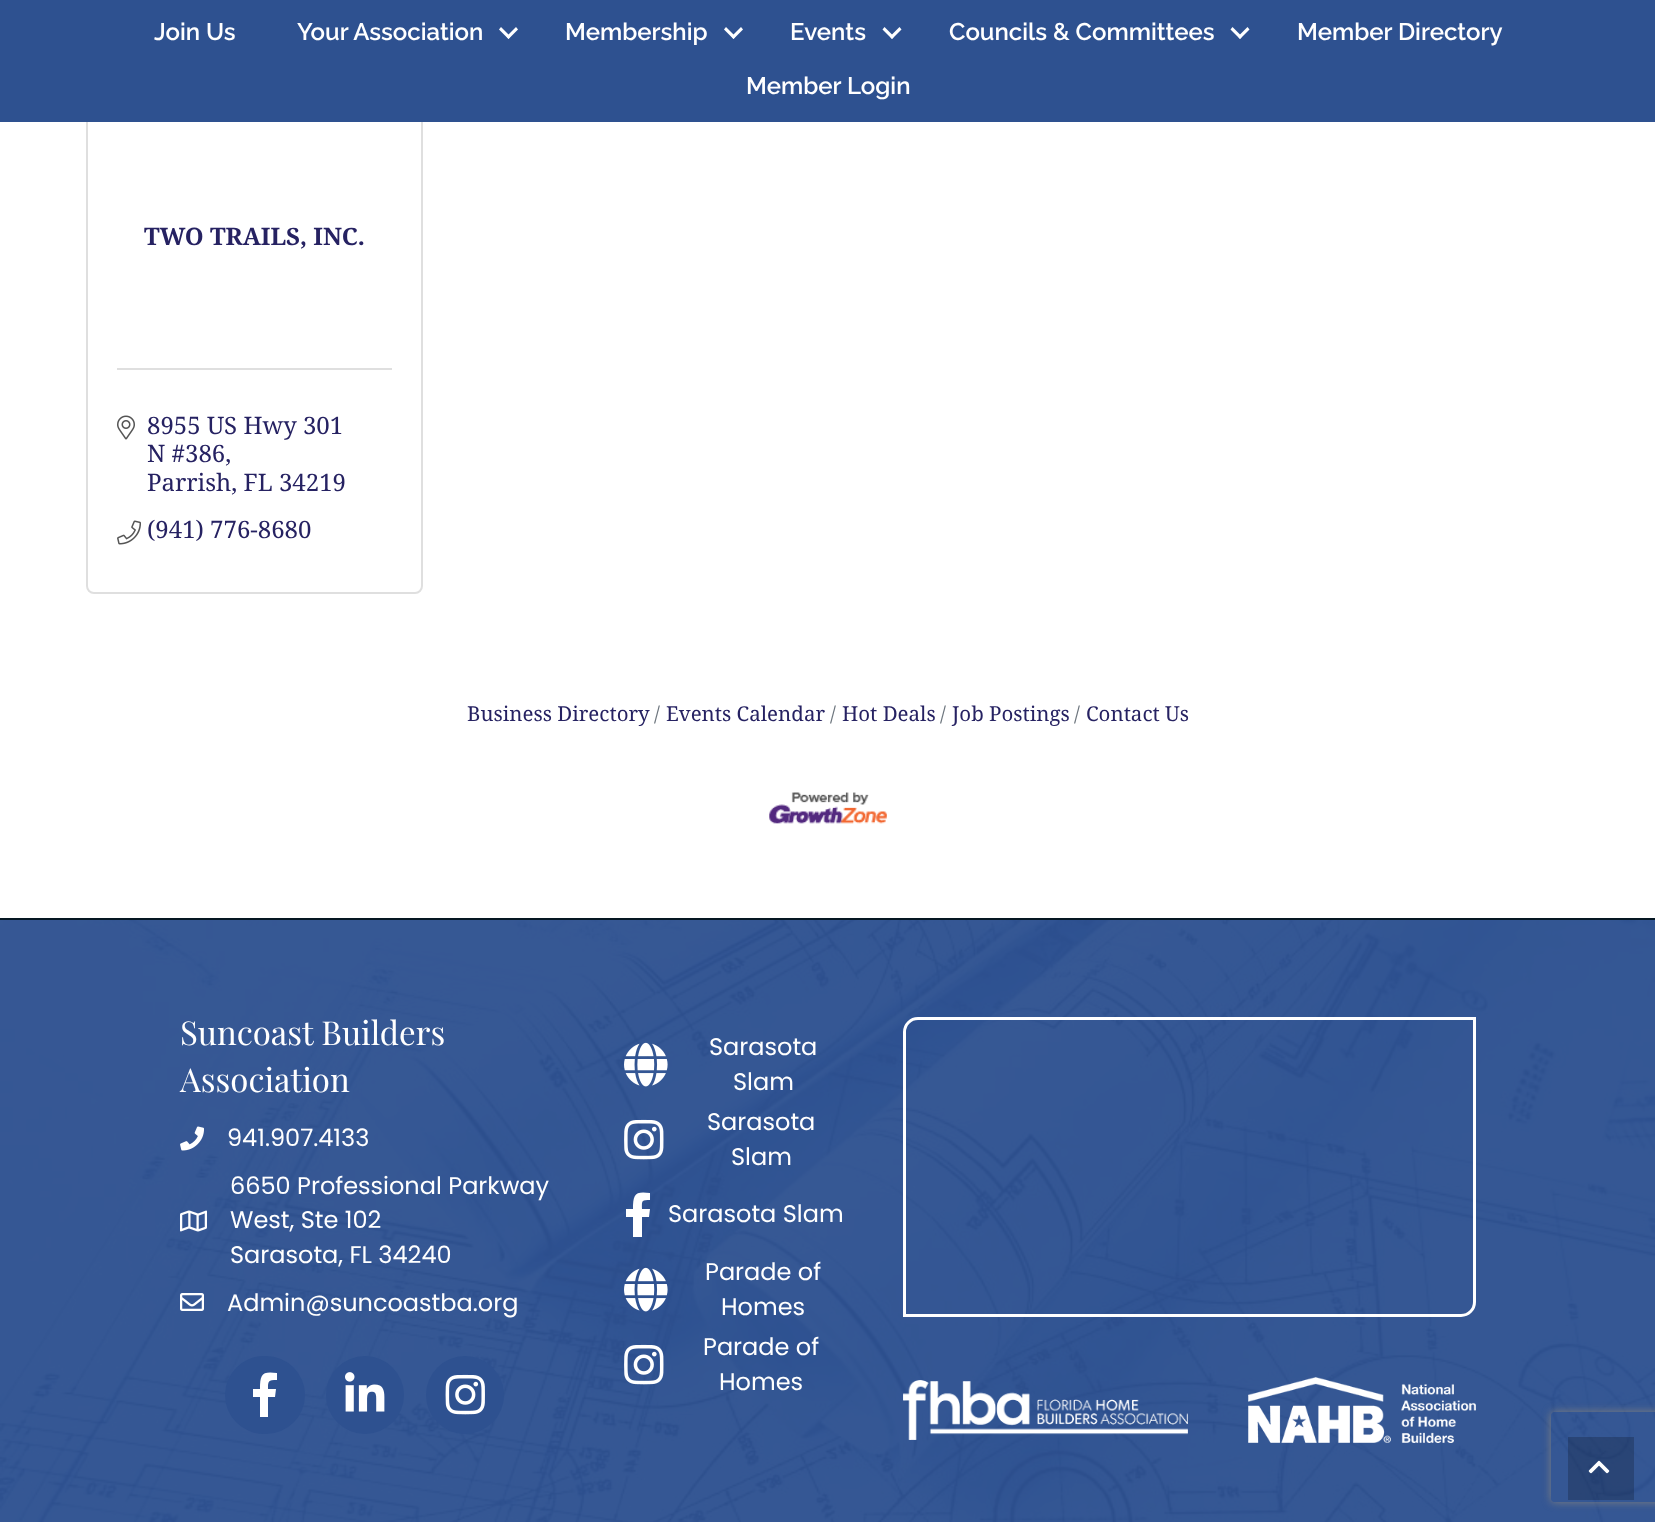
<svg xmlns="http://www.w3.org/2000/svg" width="1655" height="1522">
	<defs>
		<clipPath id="clip1"><path d="M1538 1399H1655V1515H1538ZM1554 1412H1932C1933.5 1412 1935 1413.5 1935 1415V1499C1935 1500.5 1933.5 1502 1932 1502H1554C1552.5 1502 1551 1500.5 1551 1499V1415C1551 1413.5 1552.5 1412 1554 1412Z" clip-rule="evenodd" /></clipPath>
	</defs>
	<rect width="100%" height="100%" fill="#FFFFFF" />
	<rect x="87" y="105" width="335" height="488" rx="7" fill="none" stroke="#DFDFDF" stroke-width="2" />
	<rect x="0" y="0" width="1655" height="122" fill="#2E5190" />
	<g font-family="Raleway" font-size="24" font-weight="100" fill="#FFFFFF">
		<text x="154" y="40">Join Us</text>
		<text x="297" y="40">Your Association</text>
	</g>
	<path d="M516 27L518 29.5L508.5 39L506.5 36.5Z" fill="#FFFFFF" />
	<path d="M501 27L510.5 36.5L508.5 39L499 29.5Z" fill="#FFFFFF" />
	<text x="565" y="40" font-family="Raleway" font-size="24" font-weight="100" fill="#FFFFFF">Membership</text>
	<path d="M741 27L743 29.5L733.5 39L731.5 36.5Z" fill="#FFFFFF" />
	<path d="M726 27L735.5 36.5L733.5 39L724 29.5Z" fill="#FFFFFF" />
	<text x="790" y="40" font-family="Raleway" font-size="24" font-weight="100" fill="#FFFFFF">Events</text>
	<path d="M899.5 27L901.5 29.5L892 39L890 36.5Z" fill="#FFFFFF" />
	<path d="M884.5 27L894 36.5L892 39L882.5 29.5Z" fill="#FFFFFF" />
	<text x="949" y="40" font-family="Raleway" font-size="24" font-weight="100" fill="#FFFFFF">Councils &amp; Committees</text>
	<path d="M1247.5 27L1249.5 29.5L1240 39L1238 36.5Z" fill="#FFFFFF" />
	<path d="M1232.5 27L1242 36.5L1240 39L1230.5 29.5Z" fill="#FFFFFF" />
	<g font-family="Raleway" font-size="24" font-weight="100" fill="#FFFFFF">
		<text x="1297" y="40">Member Directory</text>
		<text x="746" y="94">Member Login</text>
	</g>
	<text x="144" y="245" font-family="Noto Serif" font-size="24" font-weight="700" fill="#262262">TWO TRAILS, INC.</text>
	<rect x="117" y="368" width="275" height="2" fill="#DFDFDF" />
	<image x="117" y="415" width="18" height="25" href="assets/img1.png" />
	<g font-family="Noto Serif" font-size="24" fill="#262262">
		<text x="147" y="434">8955 US Hwy 301</text>
		<text x="147" y="462">N #386,</text>
		<text x="147" y="491">Parrish, FL 34219</text>
	</g>
	<image x="117" y="520" width="24" height="25" href="assets/img2.png" />
	<text x="147" y="538" font-family="Noto Serif" font-size="24" fill="#262262">(941) 776-8680</text>
	<text x="467" y="721" font-family="Noto Serif" font-size="20.5" fill="#262262">Business Directory</text>
	<text x="654" y="721" font-family="Noto Serif" font-size="20.5" fill="#6C757D">/</text>
	<text x="666" y="721" font-family="Noto Serif" font-size="20.5" fill="#262262">Events Calendar</text>
	<text x="830" y="721" font-family="Noto Serif" font-size="20.5" fill="#6C757D">/</text>
	<text x="842" y="721" font-family="Noto Serif" font-size="20.5" fill="#262262">Hot Deals</text>
	<text x="940" y="721" font-family="Noto Serif" font-size="20.5" fill="#6C757D">/</text>
	<text x="952" y="721" font-family="Noto Serif" font-size="20.5" fill="#262262">Job Postings</text>
	<text x="1074" y="721" font-family="Noto Serif" font-size="20.5" fill="#6C757D">/</text>
	<text x="1086" y="721" font-family="Noto Serif" font-size="20.5" fill="#262262">Contact Us</text>
	<image x="769" y="792" width="118" height="32" href="assets/img3.png" />
	<image x="0" y="920" width="1655" height="602" href="assets/img4.png" />
	<rect x="0" y="918" width="1655" height="2" fill="#051622" />
	<g font-family="Playfair Display" font-size="33" fill="#FFFFFF">
		<text x="180" y="1045">Suncoast Builders</text>
		<text x="180" y="1092">Association</text>
	</g>
	<image x="180" y="1126" width="24" height="25" href="assets/img5.png" />
	<text x="227" y="1146" font-family="Poppins" font-size="24" fill="#FFFFFF">941.907.4133</text>
	<image x="180" y="1210" width="27" height="22" href="assets/img6.png" />
	<g font-family="Poppins" font-size="24" fill="#FFFFFF">
		<text x="230" y="1194">6650 Professional Parkway</text>
		<text x="230" y="1228">West, Ste 102</text>
		<text x="230" y="1263">Sarasota, FL 34240</text>
	</g>
	<image x="180" y="1293" width="24" height="18" href="assets/img7.png" />
	<text x="227" y="1311" font-family="Poppins" font-size="24" fill="#FFFFFF">Admin@suncoastba.org</text>
	<rect x="225" y="1356" width="80" height="78" rx="39" fill="#2E5190" />
	<path d="M275 1397H268V1417H260V1397H253V1389H260C260 1374 262 1371 277 1373V1380C268 1380 268 1381 268 1389H276Z" fill="#FFFFFF" />
	<circle cx="365" cy="1395" r="39" fill="#2E5190" />
	<image x="345" y="1372" width="40" height="40" href="assets/img8.png" />
	<circle cx="465" cy="1395" r="39" fill="#2E5190" />
	<image x="445" y="1374" width="40" height="41" href="assets/img9.png" />
	<image x="624" y="1042" width="44" height="45" href="assets/img10.png" />
	<g font-family="Poppins" font-size="24" fill="#FFFFFF">
		<text x="709" y="1055">Sarasota</text>
		<text x="733" y="1090">Slam</text>
	</g>
	<image x="624" y="1119" width="40" height="41" href="assets/img11.png" />
	<g font-family="Poppins" font-size="24" fill="#FFFFFF">
		<text x="707" y="1130">Sarasota</text>
		<text x="731" y="1165">Slam</text>
	</g>
	<path d="M649 1217H642V1237H633V1217H626V1209H633C633 1194 635 1191 650 1193V1200C641 1200 642 1201 642 1209H650Z" fill="#FFFFFF" />
	<text x="668" y="1222" font-family="Poppins" font-size="24" fill="#FFFFFF">Sarasota Slam</text>
	<image x="624" y="1267" width="44" height="45" href="assets/img12.png" />
	<g font-family="Poppins" font-size="24" fill="#FFFFFF">
		<text x="705" y="1280">Parade of</text>
		<text x="721" y="1315">Homes</text>
	</g>
	<image x="624" y="1344" width="40" height="41" href="assets/img13.png" />
	<g font-family="Poppins" font-size="24" fill="#FFFFFF">
		<text x="703" y="1355">Parade of</text>
		<text x="719" y="1390">Homes</text>
	</g>
	<path d="M918 1018.5H1474.5V1302C1474.5 1309.5 1468.5 1315.5 1461 1315.5H904.5V1032C904.5 1024.5 910.5 1018.5 918 1018.5Z" fill="none" stroke="#FFFFFF" stroke-width="3" />
	<image x="903" y="1380" width="285" height="60" href="assets/img14.png" />
	<image x="1248" y="1377" width="228" height="66" href="assets/img15.png" />
	<g clip-path="url(#clip1)">
		<rect x="1551" y="1412" width="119" height="90" rx="3" fill="#808080" filter="blur(4px)" />
	</g>
	<rect x="1568" y="1437" width="66" height="63" fill="#000000" fill-opacity="0.2" />
	<image x="1588" y="1460" width="22" height="14" href="assets/img16.png" />
</svg>
